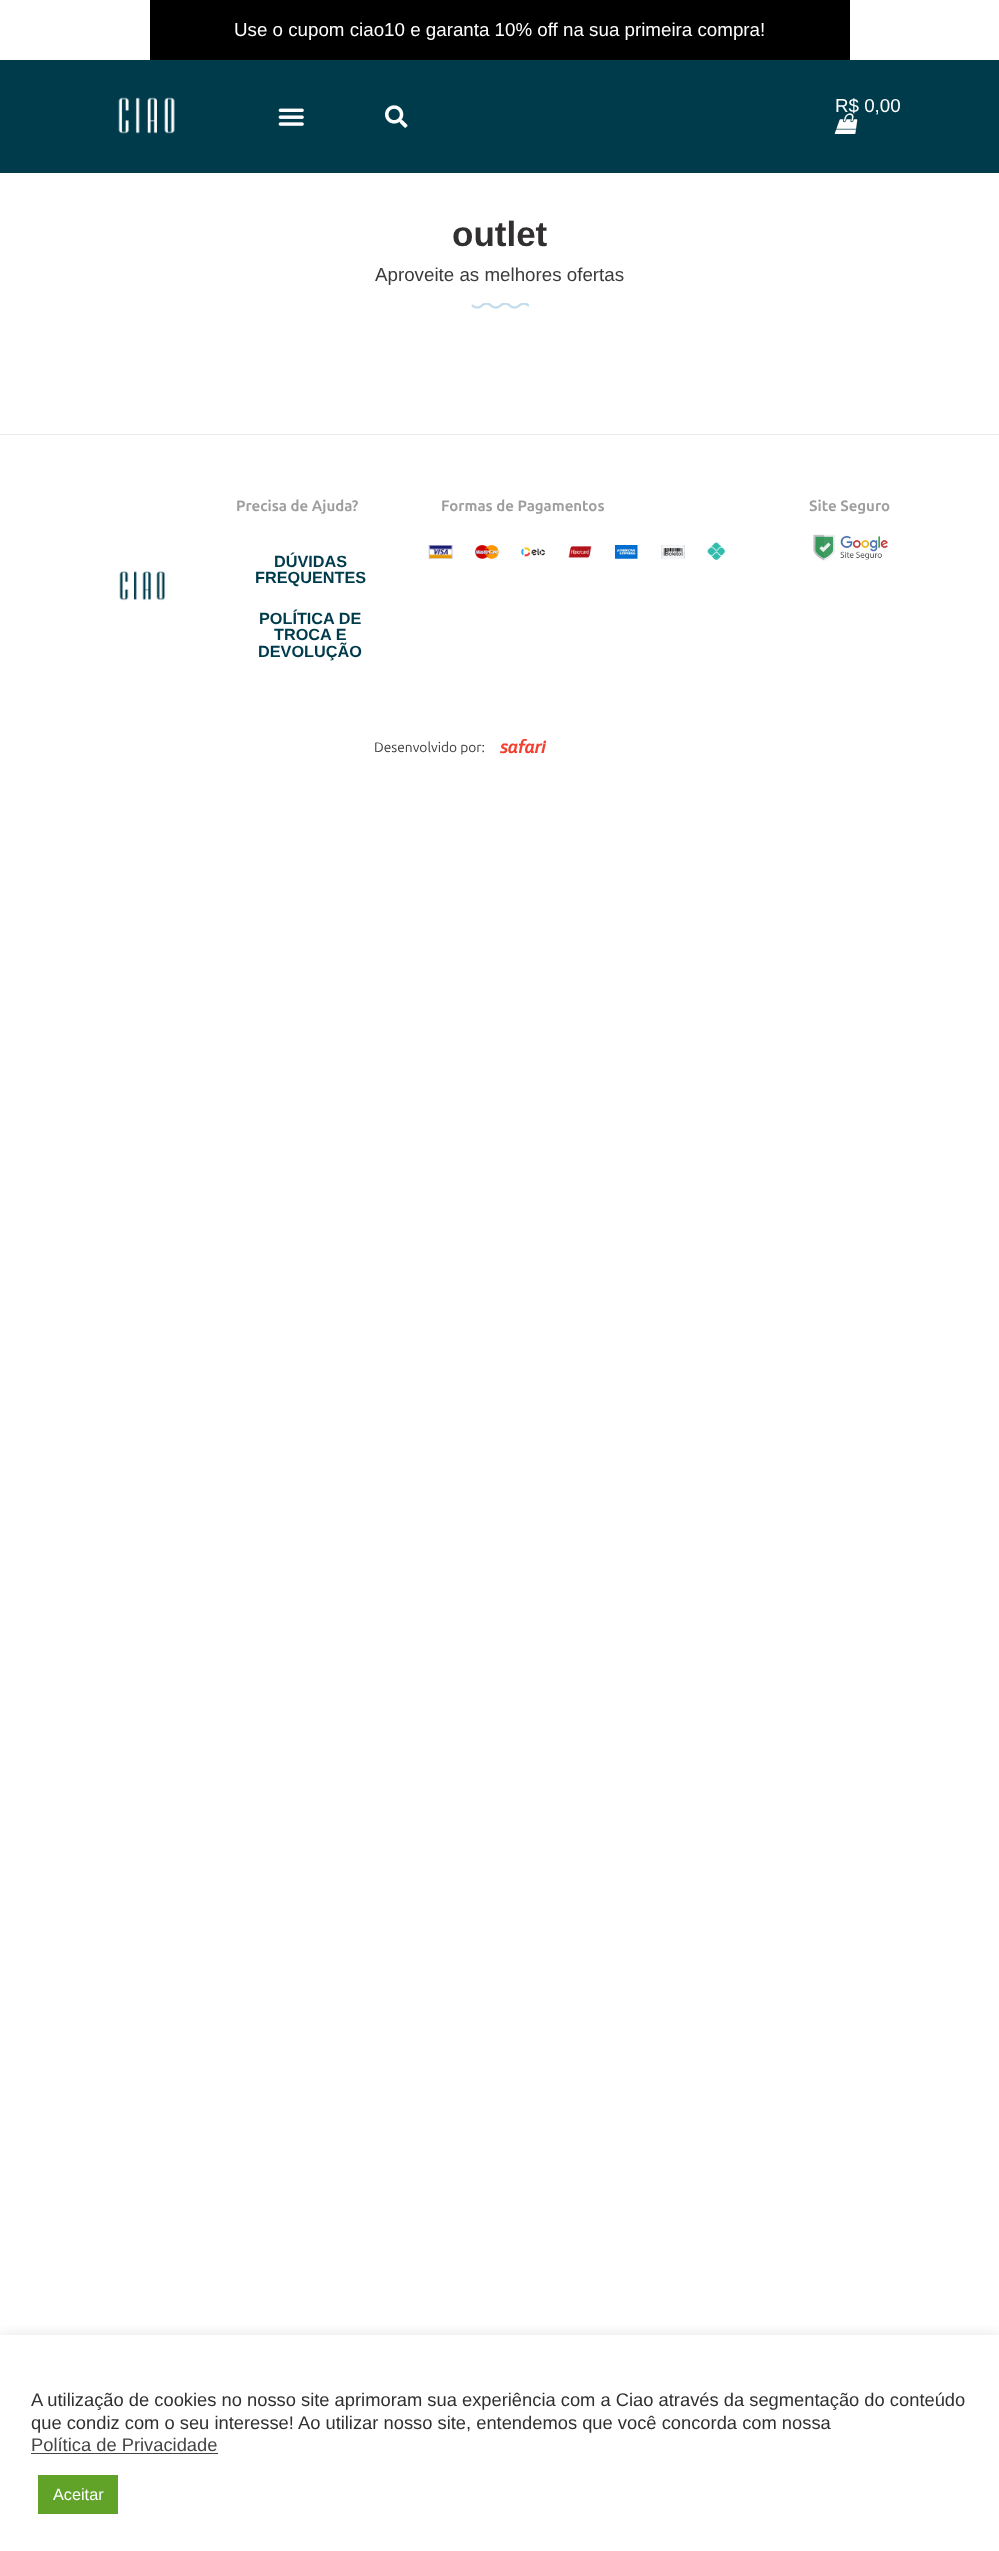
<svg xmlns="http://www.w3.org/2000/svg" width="999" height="2551">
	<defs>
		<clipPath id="clip1"><rect x="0" y="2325" width="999" height="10" /></clipPath>
	</defs>
	<rect width="100%" height="100%" fill="#FFFFFF" />
	<rect x="150" y="0" width="700" height="60" fill="#000000" />
	<text x="234" y="36" font-family="Liberation Sans" font-size="18.75" fill="#FFFFFF">Use o cupom ciao10 e garanta 10% off na sua primeira compra!</text>
	<rect x="0" y="60" width="999" height="113" fill="#003B4C" />
	<image x="118" y="97" width="57" height="37" href="assets/img1.png" />
	<image x="278" y="108" width="26" height="18" href="assets/img2.png" />
	<image x="385" y="105" width="23" height="23" href="assets/img3.png" />
	<text x="835" y="112" font-family="Liberation Sans" font-size="18.75" fill="#FFFFFF">R$ 0,00</text>
	<image x="834" y="113" width="24" height="21" href="assets/img4.png" />
	<text x="452" y="246" font-family="Liberation Sans" font-size="35" font-weight="700" fill="#312F30">outlet</text>
	<text x="375" y="281" font-family="Liberation Sans" font-size="18.75" fill="#3A3A3A">Aproveite as melhores ofertas</text>
	<image x="471" y="303" width="58" height="6" href="assets/img5.png" />
	<rect x="0" y="434" width="999" height="1" fill="#EAEAEA" />
	<text x="236" y="511" font-family="Ubuntu" font-size="15" font-weight="700" fill="#9F9E9E">Precisa de Ajuda?</text>
	<g font-family="Liberation Sans" font-size="16.25" font-weight="700" fill="#003B4C">
		<text x="274" y="567">DÚVIDAS</text>
		<text x="255" y="583">FREQUENTES</text>
		<text x="259" y="624">POLÍTICA DE</text>
		<text x="274" y="640">TROCA E</text>
		<text x="258" y="657">DEVOLUÇÃO</text>
	</g>
	<text x="441" y="511" font-family="Ubuntu" font-size="15" font-weight="700" fill="#9F9E9E">Formas de Pagamentos</text>
	<image x="428" y="545" width="25" height="14" href="assets/img6.png" />
	<image x="475" y="545" width="24" height="14" href="assets/img7.png" />
	<image x="521" y="547" width="24" height="10" href="assets/img8.png" />
	<image x="568" y="546" width="24" height="12" href="assets/img9.png" />
	<image x="615" y="545" width="23" height="14" href="assets/img10.png" />
	<image x="661" y="545" width="24" height="14" href="assets/img11.png" />
	<image x="707" y="542" width="18" height="18" href="assets/img12.png" />
	<text x="809" y="511" font-family="Ubuntu" font-size="15" font-weight="700" fill="#9F9E9E">Site Seguro</text>
	<image x="813" y="534" width="75" height="27" href="assets/img13.png" />
	<image x="119" y="571" width="47" height="30" href="assets/img14.png" />
	<text x="374" y="752" font-family="Ubuntu" font-size="13.75" fill="#3A3A3A">Desenvolvido por:</text>
	<image x="500" y="739" width="47" height="15" href="assets/img15.png" />
	<g clip-path="url(#clip1)">
		<rect x="0" y="2334" width="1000" height="216" fill="#ACABAB" fill-opacity="0.3" filter="blur(6px)" />
	</g>
	<g font-family="Liberation Sans" font-size="18.33" fill="#312F30">
		<text x="31" y="2406">A utilização de cookies no nosso site aprimoram sua experiência com a Ciao através da segmentação do conteúdo</text>
		<text x="31" y="2429">que condiz com o seu interesse! Ao utilizar nosso site, entendemos que você concorda com nossa</text>
	</g>
	<text x="31" y="2451" font-family="Liberation Sans" font-size="18.33" fill="#444444">Política de Privacidade</text>
	<rect x="31" y="2453" width="187" height="1" fill="#444444" />
	<rect x="38" y="2475" width="80" height="39" fill="#61A229" />
	<text x="53" y="2500" font-family="Liberation Sans" font-size="16.25" fill="#FFFFFF">Aceitar</text>
</svg>
